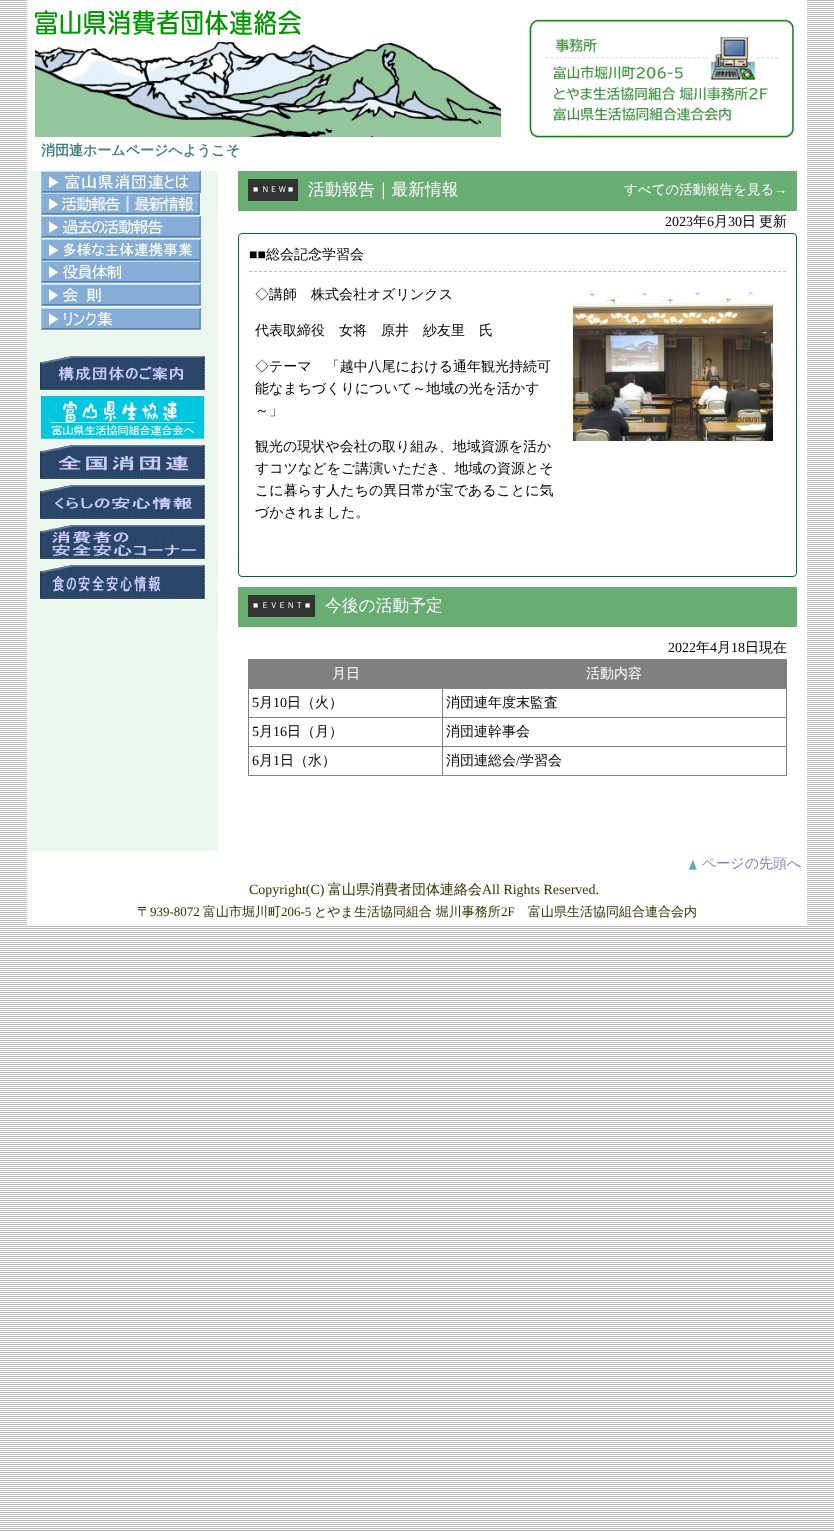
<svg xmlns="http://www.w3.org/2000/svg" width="834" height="1531">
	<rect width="100%" height="100%" fill="#FFFFFF" />
	<image x="0" y="0" width="834" height="1531" href="assets/img1.png" />
	<rect x="27" y="0" width="780" height="139" fill="#FFFFFF" />
	<image x="35" y="19" width="759" height="119" href="assets/img2.png" />
	<image x="35" y="10" width="266" height="32" href="assets/img3.png" />
	<rect x="27" y="140" width="780" height="711" fill="#FFFFFF" />
	<text x="41" y="155" font-family="WenQuanYi Zen Hei" font-size="14" font-weight="700" fill="#408080">消団連ホームページへようこそ</text>
	<rect x="27" y="171" width="191" height="680" fill="#EEF7EF" />
	<image x="41" y="171" width="160" height="22" href="assets/img4.png" />
	<image x="41" y="193" width="159" height="22" href="assets/img5.png" />
	<image x="41" y="216" width="160" height="22" href="assets/img6.png" />
	<image x="41" y="239" width="160" height="22" href="assets/img7.png" />
	<image x="41" y="261" width="160" height="22" href="assets/img8.png" />
	<image x="41" y="284" width="160" height="22" href="assets/img9.png" />
	<image x="41" y="308" width="160" height="22" href="assets/img10.png" />
	<image x="40" y="356" width="165" height="34" href="assets/img11.png" />
	<image x="41" y="396" width="163" height="43" href="assets/img12.png" />
	<image x="40" y="445" width="165" height="34" href="assets/img13.png" />
	<image x="40" y="485" width="165" height="34" href="assets/img14.png" />
	<image x="40" y="525" width="165" height="34" href="assets/img15.png" />
	<image x="40" y="565" width="165" height="34" href="assets/img16.png" />
	<rect x="238" y="171" width="559" height="40" fill="#68AE73" />
	<rect x="248" y="179" width="50" height="22" fill="#333333" />
	<text x="253" y="192" font-family="Liberation Serif" font-size="8.5" fill="#FFFFFF">■</text>
	<text x="261" y="192" font-family="WenQuanYi Zen Hei" font-size="8.5" font-weight="500" fill="#FFFFFF">ＮＥＷ</text>
	<text x="288" y="192" font-family="Liberation Serif" font-size="8.5" fill="#FFFFFF">■</text>
	<text x="308" y="195" font-family="WenQuanYi Zen Hei" font-size="16.75" font-weight="500" fill="#FFFFFF">活動報告｜最新情報</text>
	<text x="624" y="194" font-family="WenQuanYi Zen Hei" font-size="13.5" font-weight="500" fill="#FFFFFF">すべての活動報告を見る</text>
	<text x="774" y="194" font-family="Liberation Serif" font-size="13.5" fill="#FFFFFF">→</text>
	<text x="665" y="226" font-family="Liberation Serif" font-size="14" fill="#000000">2023</text>
	<text x="693" y="226" font-family="WenQuanYi Zen Hei" font-size="14" font-weight="500" fill="#000000">年</text>
	<text x="707" y="226" font-family="Liberation Serif" font-size="14" fill="#000000">6</text>
	<text x="714" y="226" font-family="WenQuanYi Zen Hei" font-size="14" font-weight="500" fill="#000000">月</text>
	<text x="728" y="226" font-family="Liberation Serif" font-size="14" fill="#000000">30</text>
	<g font-family="WenQuanYi Zen Hei" font-size="14" font-weight="500" fill="#000000">
		<text x="742" y="226">日</text>
		<text x="759" y="226">更新</text>
	</g>
	<rect x="238.5" y="233.5" width="558" height="343" rx="3.5" fill="none" stroke="#006633" />
	<text x="249" y="259" font-family="Liberation Serif" font-size="14" fill="#000000">■■</text>
	<text x="266" y="259" font-family="WenQuanYi Zen Hei" font-size="14" font-weight="500" fill="#000000">総会記念学習会</text>
	<path d="M249 271.5H786" fill="none" stroke="#BBBBBB" stroke-dasharray="3 1.99" />
	<g font-family="WenQuanYi Zen Hei" font-size="14" font-weight="500" fill="#000000">
		<text x="255" y="299">◇講師　株式会社オズリンクス</text>
		<text x="255" y="335">代表取締役　女将　原井　紗友里　氏</text>
		<text x="255" y="371">◇テーマ　「越中八尾における通年観光持続可</text>
		<text x="255" y="393">能なまちづくりについて～地域の光を活かす</text>
		<text x="255" y="415">～」</text>
		<text x="255" y="451">観光の現状や会社の取り組み、地域資源を活か</text>
		<text x="255" y="473">すコツなどをご講演いただき、地域の資源とそ</text>
		<text x="255" y="495">こに暮らす人たちの異日常が宝であることに気</text>
		<text x="255" y="517">づかされました。</text>
	</g>
	<image x="573" y="291" width="200" height="150" href="assets/img17.png" />
	<rect x="238" y="587" width="559" height="40" fill="#68AE73" />
	<rect x="248" y="595" width="67" height="22" fill="#333333" />
	<text x="253" y="608" font-family="Liberation Serif" font-size="8.5" fill="#FFFFFF">■</text>
	<text x="261" y="608" font-family="WenQuanYi Zen Hei" font-size="8.5" font-weight="500" fill="#FFFFFF">ＥＶＥＮＴ</text>
	<text x="305" y="608" font-family="Liberation Serif" font-size="8.5" fill="#FFFFFF">■</text>
	<text x="325" y="611" font-family="WenQuanYi Zen Hei" font-size="16.75" font-weight="500" fill="#FFFFFF">今後の活動予定</text>
	<text x="668" y="652" font-family="Liberation Serif" font-size="14" fill="#000000">2022</text>
	<text x="696" y="652" font-family="WenQuanYi Zen Hei" font-size="14" font-weight="500" fill="#000000">年</text>
	<text x="710" y="652" font-family="Liberation Serif" font-size="14" fill="#000000">4</text>
	<text x="717" y="652" font-family="WenQuanYi Zen Hei" font-size="14" font-weight="500" fill="#000000">月</text>
	<text x="731" y="652" font-family="Liberation Serif" font-size="14" fill="#000000">18</text>
	<text x="745" y="652" font-family="WenQuanYi Zen Hei" font-size="14" font-weight="500" fill="#000000">日現在</text>
	<rect x="248" y="659" width="539" height="1" fill="#808080" />
	<rect x="786" y="659" width="1" height="117" fill="#808080" />
	<rect x="248" y="775" width="539" height="1" fill="#808080" />
	<rect x="248" y="659" width="1" height="117" fill="#808080" />
	<rect x="249" y="660" width="537" height="29" fill="#808080" />
	<g font-family="WenQuanYi Zen Hei" font-size="14" font-weight="500" fill="#FFFFFF">
		<text x="332" y="678">月日</text>
		<text x="586" y="678">活動内容</text>
	</g>
	<text x="252" y="707" font-family="Liberation Serif" font-size="14" fill="#000000">5</text>
	<text x="259" y="707" font-family="WenQuanYi Zen Hei" font-size="14" font-weight="500" fill="#000000">月</text>
	<text x="273" y="707" font-family="Liberation Serif" font-size="14" fill="#000000">10</text>
	<text x="287" y="707" font-family="WenQuanYi Zen Hei" font-size="14" font-weight="500" fill="#000000">日（火）</text>
	<rect x="442" y="717" width="345" height="1" fill="#808080" />
	<rect x="442" y="746" width="345" height="1" fill="#808080" />
	<rect x="442" y="746" width="1" height="30" fill="#808080" />
	<rect x="248" y="746" width="195" height="1" fill="#808080" />
	<rect x="442" y="717" width="1" height="30" fill="#808080" />
	<rect x="248" y="717" width="195" height="1" fill="#808080" />
	<rect x="442" y="688" width="1" height="30" fill="#808080" />
	<text x="446" y="707" font-family="WenQuanYi Zen Hei" font-size="14" font-weight="500" fill="#000000">消団連年度末監査</text>
	<text x="252" y="736" font-family="Liberation Serif" font-size="14" fill="#000000">5</text>
	<text x="259" y="736" font-family="WenQuanYi Zen Hei" font-size="14" font-weight="500" fill="#000000">月</text>
	<text x="273" y="736" font-family="Liberation Serif" font-size="14" fill="#000000">16</text>
	<g font-family="WenQuanYi Zen Hei" font-size="14" font-weight="500" fill="#000000">
		<text x="287" y="736">日（月）</text>
		<text x="446" y="736">消団連幹事会</text>
	</g>
	<text x="252" y="765" font-family="Liberation Serif" font-size="14" fill="#000000">6</text>
	<text x="259" y="765" font-family="WenQuanYi Zen Hei" font-size="14" font-weight="500" fill="#000000">月</text>
	<text x="273" y="765" font-family="Liberation Serif" font-size="14" fill="#000000">1</text>
	<g font-family="WenQuanYi Zen Hei" font-size="14" font-weight="500" fill="#000000">
		<text x="280" y="765">日（水）</text>
		<text x="446" y="765">消団連総会</text>
	</g>
	<text x="516" y="765" font-family="Liberation Serif" font-size="14" fill="#000000">/</text>
	<text x="520" y="765" font-family="WenQuanYi Zen Hei" font-size="14" font-weight="500" fill="#000000">学習会</text>
	<rect x="27" y="852" width="780" height="73" fill="#FFFFFF" />
	<image x="689" y="859" width="8" height="11" href="assets/img18.png" />
	<text x="702" y="868" font-family="WenQuanYi Zen Hei" font-size="14" font-weight="500" fill="#8080C0">ページの先頭へ</text>
	<text x="249" y="894" font-family="Liberation Serif" font-size="14" fill="#333300">Copyright(C)</text>
	<text x="328" y="894" font-family="WenQuanYi Zen Hei" font-size="14" font-weight="500" fill="#333300">富山県消費者団体連絡会</text>
	<text x="482" y="894" font-family="Liberation Serif" font-size="14" fill="#333300">All Rights Reserved.</text>
	<text x="137" y="916" font-family="WenQuanYi Zen Hei" font-size="13" font-weight="500" fill="#333300">〒</text>
	<text x="150" y="916" font-family="Liberation Serif" font-size="13" fill="#333300">939-8072</text>
	<text x="203" y="916" font-family="WenQuanYi Zen Hei" font-size="13" font-weight="500" fill="#333300">富山市堀川町</text>
	<text x="281" y="916" font-family="Liberation Serif" font-size="13" fill="#333300">206-5</text>
	<text x="314" y="916" font-family="WenQuanYi Zen Hei" font-size="13" font-weight="500" fill="#333300">とやま生活協同組合 堀川事務所</text>
	<text x="501" y="916" font-family="Liberation Serif" font-size="13" fill="#333300">2F</text>
	<text x="528" y="916" font-family="WenQuanYi Zen Hei" font-size="13" font-weight="500" fill="#333300">富山県生活協同組合連合会内</text>
</svg>
